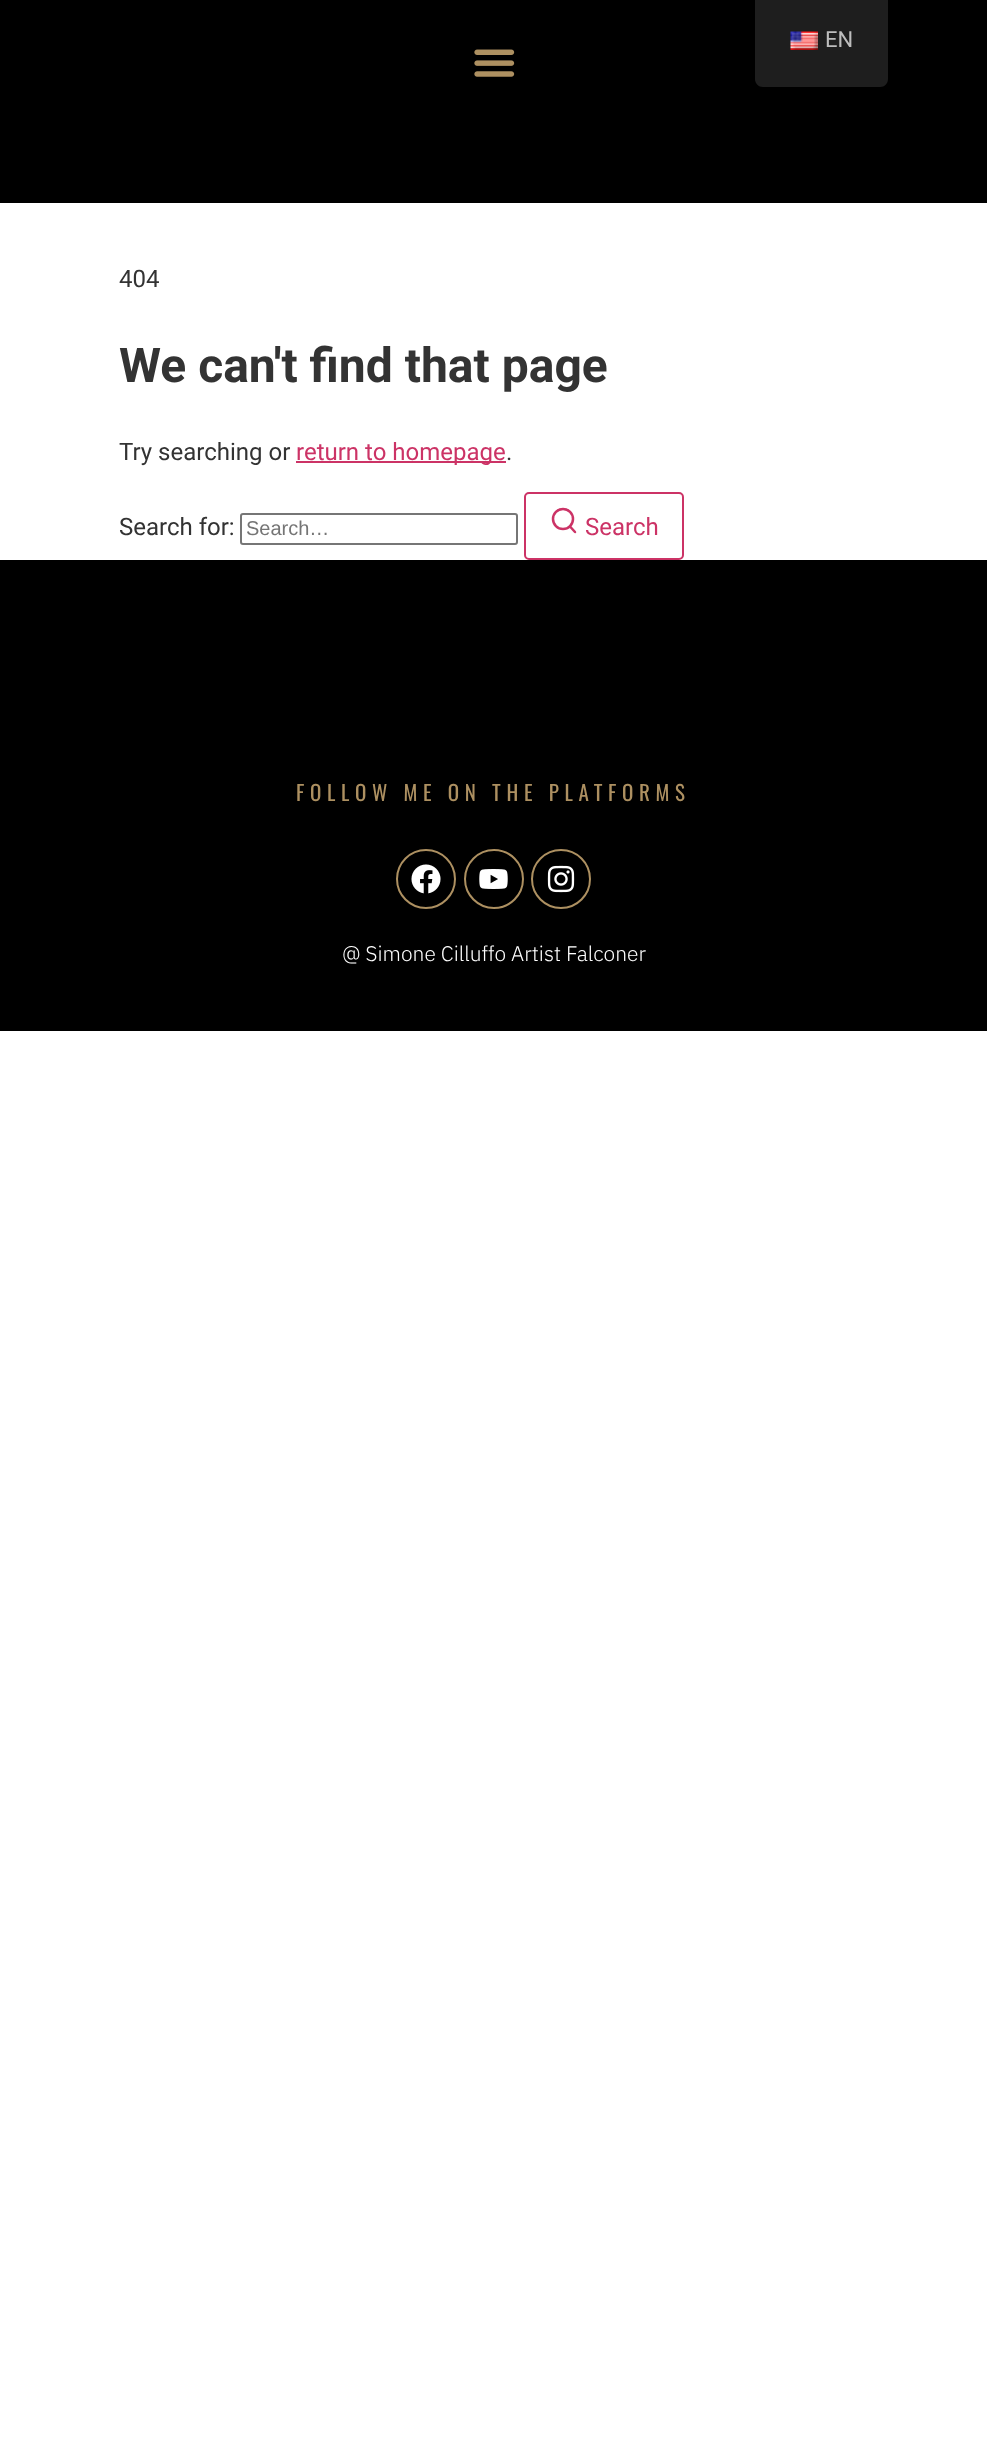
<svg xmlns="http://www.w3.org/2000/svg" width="987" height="2456">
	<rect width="100%" height="100%" fill="#FFFFFF" />
	<rect x="0" y="0" width="987" height="203" fill="#000000" />
	<image x="474" y="49" width="41" height="28" href="assets/img1.png" />
	<path d="M755 0H888V79C888 83.5 884.5 87 880 87H763C758.5 87 755 83.5 755 79Z" fill="#1E1E1E" />
	<image x="790" y="31" width="28" height="19" href="assets/img2.png" />
	<text x="825" y="47" font-family="Roboto" font-size="22" fill="#BDBDBD">EN</text>
	<text x="119" y="287" font-family="Roboto" font-size="24" fill="#333333">404</text>
	<text x="119" y="382" font-family="Roboto" font-size="48" font-weight="700" fill="#333333">We can't find that page</text>
	<text x="119" y="460" font-family="Roboto" font-size="24" fill="#333333">Try searching or</text>
	<rect x="296" y="461" width="210" height="2" fill="#CC3366" />
	<text x="296" y="460" font-family="Roboto" font-size="24" fill="#CC3366">return to homepage</text>
	<g font-family="Roboto" font-size="24" fill="#333333">
		<text x="506" y="460">.</text>
		<text x="119" y="535">Search for:</text>
	</g>
	<rect x="241" y="514" width="276" height="30" rx="2" fill="none" stroke="#767676" stroke-width="2" />
	<text x="246" y="535" font-family="Liberation Sans" font-size="20" fill="#757575">Search…</text>
	<rect x="525" y="493" width="158" height="66" rx="4" fill="none" stroke="#CC3366" stroke-width="2" />
	<circle cx="563" cy="519" r="10" fill="none" stroke="#CC3366" stroke-width="2.5" />
	<text x="585" y="535" font-family="Roboto" font-size="24" fill="#CC3366">Search</text>
	<path d="M575 532L570 526.5" fill="none" stroke="#CC3366" stroke-width="2.5" stroke-linecap="round" stroke-linejoin="round" />
	<rect x="0" y="560" width="987" height="471" fill="#000000" />
	<text x="296" y="801" font-family="Oswald" font-size="21" letter-spacing="5.7" fill="#AD9061">FOLLOW ME ON THE PLATFORMS</text>
	<circle cx="426" cy="879" r="29" fill="none" stroke="#AD9061" stroke-width="2" />
	<image x="411" y="864" width="30" height="30" href="assets/img3.png" />
	<circle cx="494" cy="879" r="29" fill="none" stroke="#AD9061" stroke-width="2" />
	<image x="479" y="869" width="29" height="20" href="assets/img4.png" />
	<circle cx="561" cy="879" r="29" fill="none" stroke="#AD9061" stroke-width="2" />
	<image x="547" y="865" width="28" height="28" href="assets/img5.png" />
	<text x="342" y="961" font-family="IBM Plex Sans" font-size="21" font-weight="300" fill="#FFFFFF">@ Simone Cilluffo Artist Falconer</text>
</svg>
